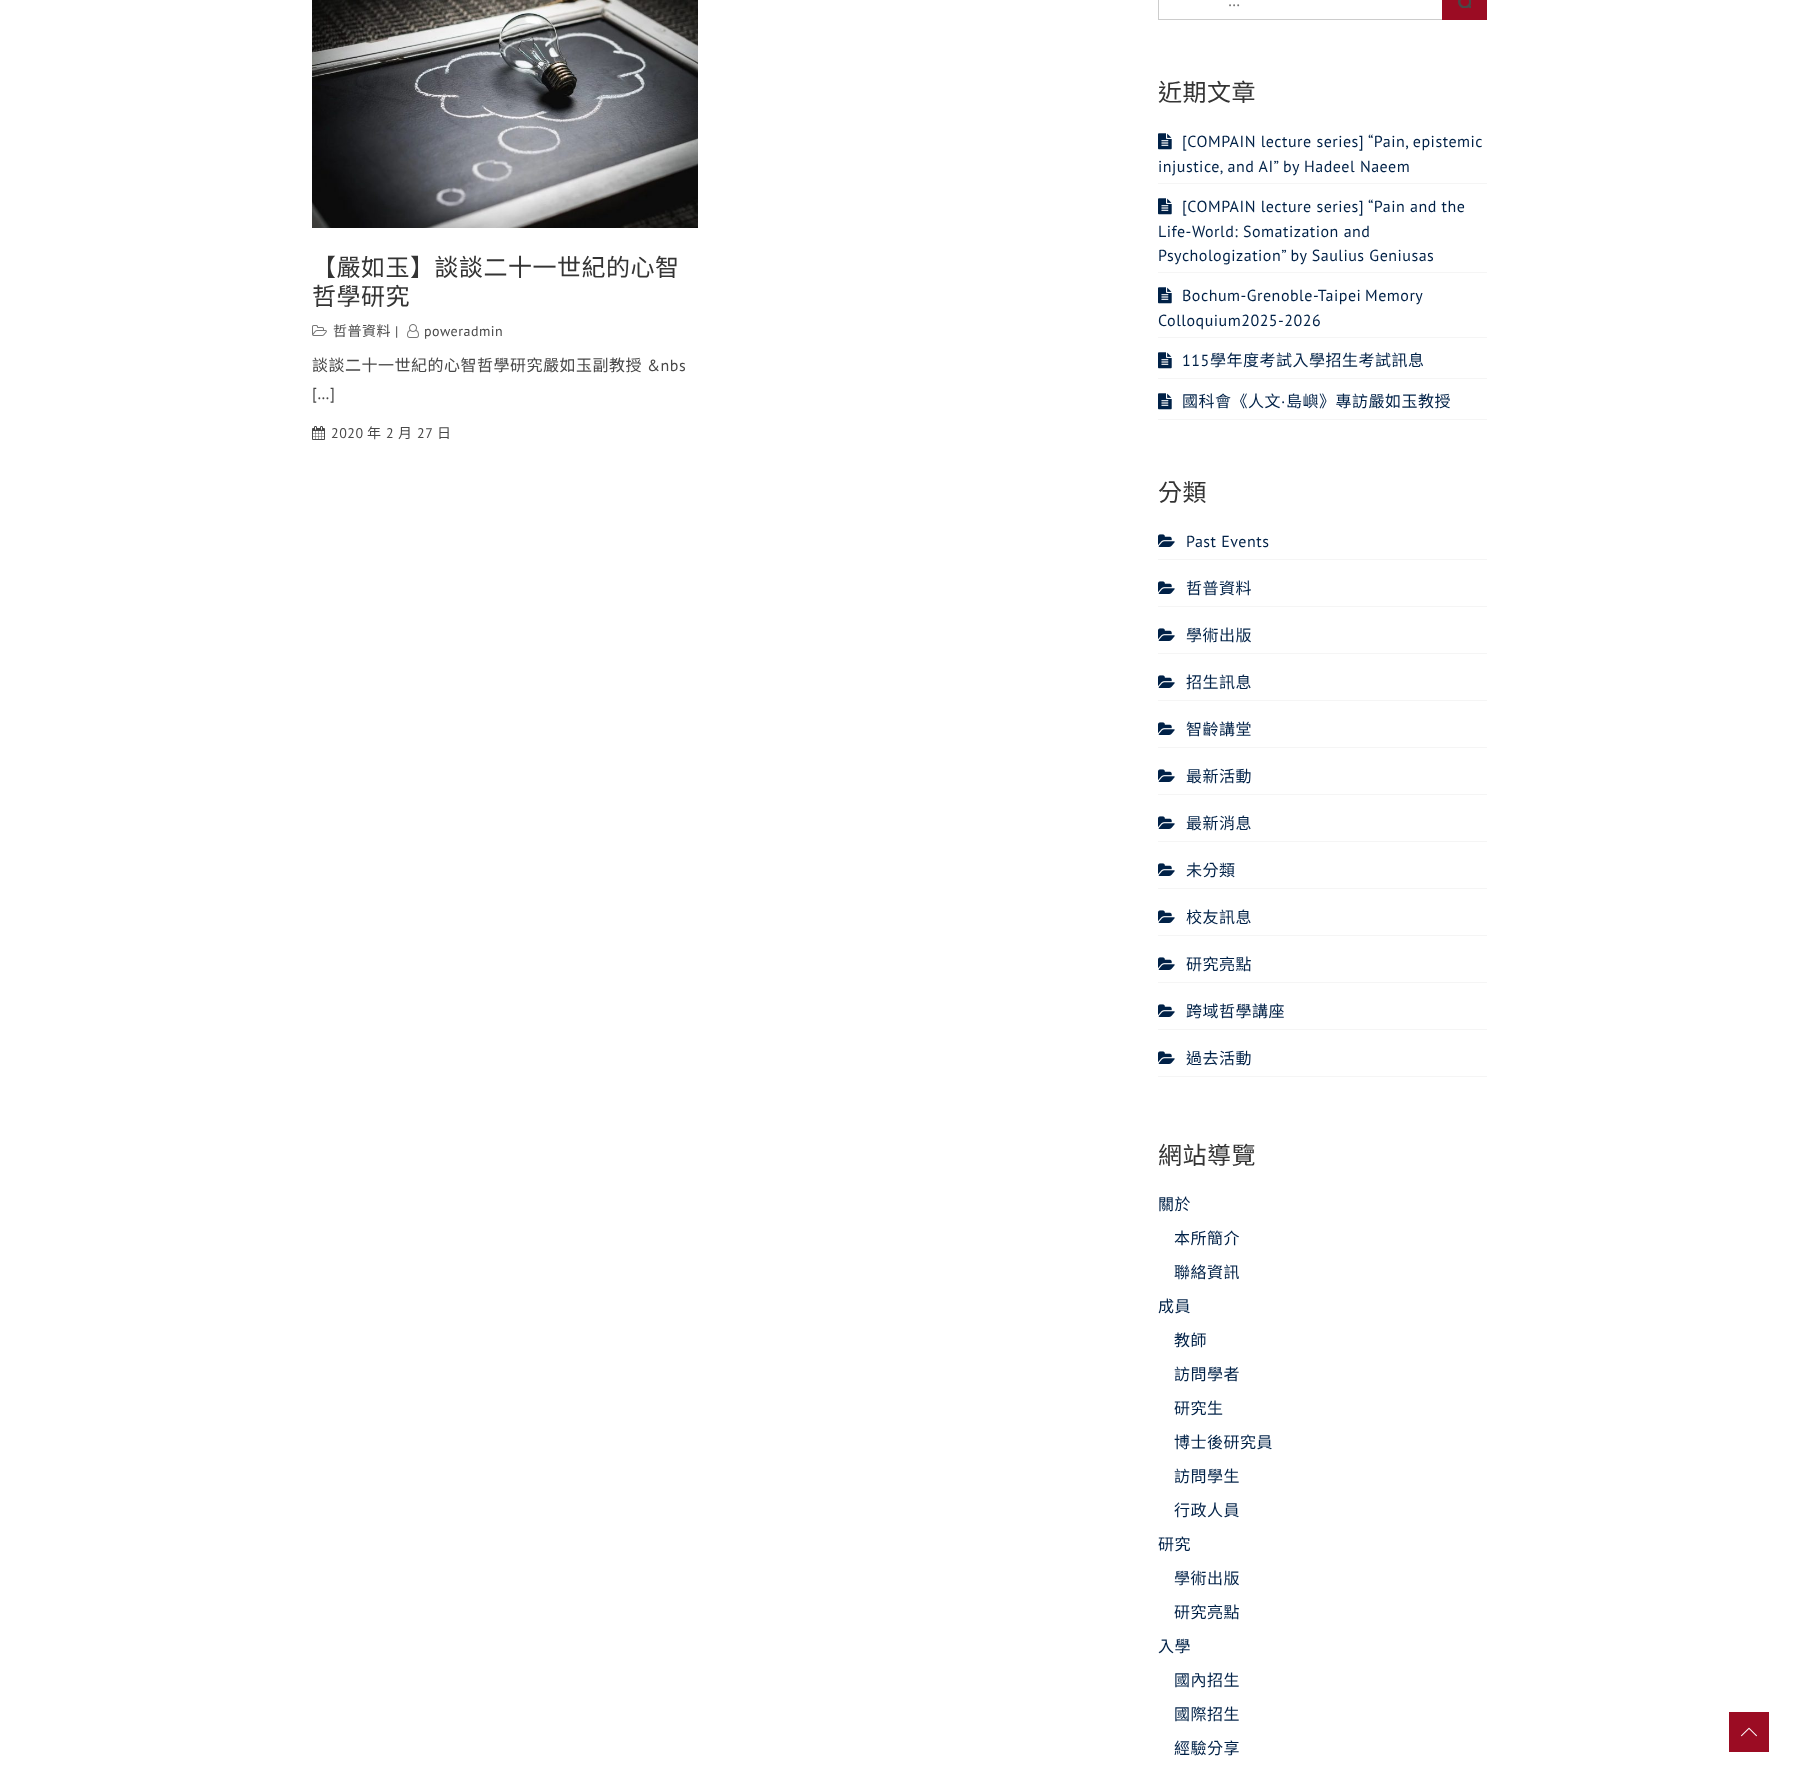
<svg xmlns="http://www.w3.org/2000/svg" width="1794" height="1777">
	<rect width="100%" height="100%" fill="#FFFFFF" />
	<image x="312" y="0" width="386" height="228" href="assets/img1.png" />
	<g font-family="Noto Sans CJK TC" font-size="24" letter-spacing="0.5" fill="#343434">
		<text x="312" y="276">【嚴如玉】談談二十一世紀的心智</text>
		<text x="312" y="305">哲學研究</text>
	</g>
	<image x="312" y="325" width="15" height="11" href="assets/img2.png" />
	<text x="333" y="336" font-family="Noto Sans CJK TC" font-size="14" letter-spacing="0.5" fill="#484848">哲普資料</text>
	<text x="395" y="336" font-family="PT Sans" font-size="14" letter-spacing="0.5" fill="#484848">|</text>
	<image x="407" y="324" width="12" height="14" href="assets/img3.png" />
	<text x="424" y="336" font-family="PT Sans" font-size="14" letter-spacing="0.5" fill="#484848">poweradmin</text>
	<text x="312" y="371" font-family="Noto Sans CJK TC" font-size="16" letter-spacing="0.5" fill="#484848">談談二十一世紀的心智哲學研究嚴如玉副教授</text>
	<g font-family="PT Sans" font-size="16" letter-spacing="0.5" fill="#484848">
		<text x="647" y="371">&amp;nbs</text>
		<text x="312" y="399">[…]</text>
	</g>
	<image x="312" y="426" width="13" height="14" href="assets/img4.png" />
	<text x="331" y="438" font-family="PT Sans" font-size="14" letter-spacing="0.5" fill="#484848">2020</text>
	<text x="367" y="438" font-family="Noto Sans CJK TC" font-size="14" letter-spacing="0.5" fill="#484848">年</text>
	<text x="386" y="438" font-family="PT Sans" font-size="14" letter-spacing="0.5" fill="#484848">2</text>
	<text x="398" y="438" font-family="Noto Sans CJK TC" font-size="14" letter-spacing="0.5" fill="#484848">月</text>
	<text x="417" y="438" font-family="PT Sans" font-size="14" letter-spacing="0.5" fill="#484848">27</text>
	<text x="437" y="438" font-family="Noto Sans CJK TC" font-size="14" letter-spacing="0.5" fill="#484848">日</text>
	<rect x="1158.5" y="-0.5" width="328" height="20" fill="none" stroke="#CCCCCC" />
	<text x="1228" y="6" font-family="PT Sans" font-size="16" letter-spacing="0.5" fill="#757575">…</text>
	<rect x="1442" y="0" width="45" height="20" fill="#9B0C23" />
	<image x="1458" y="0" width="13" height="8" href="assets/img5.png" />
	<text x="1158" y="101" font-family="Noto Sans CJK TC" font-size="24" letter-spacing="0.5" fill="#343434">近期文章</text>
	<rect x="1158" y="183" width="329" height="1" fill="#F5F5F5" />
	<image x="1158" y="133" width="14" height="17" href="assets/img6.png" />
	<g font-family="PT Sans" font-size="16" letter-spacing="0.5" fill="#002147">
		<text x="1182" y="147">[COMPAIN lecture series] “Pain, epistemic</text>
		<text x="1158" y="172">injustice, and AI” by Hadeel Naeem</text>
	</g>
	<rect x="1158" y="272" width="329" height="1" fill="#F5F5F5" />
	<image x="1158" y="198" width="14" height="17" href="assets/img6.png" />
	<g font-family="PT Sans" font-size="16" letter-spacing="0.5" fill="#002147">
		<text x="1182" y="212">[COMPAIN lecture series] “Pain and the</text>
		<text x="1158" y="237">Life-World: Somatization and</text>
		<text x="1158" y="261">Psychologization” by Saulius Geniusas</text>
	</g>
	<rect x="1158" y="337" width="329" height="1" fill="#F5F5F5" />
	<image x="1158" y="287" width="14" height="17" href="assets/img6.png" />
	<g font-family="PT Sans" font-size="16" letter-spacing="0.5" fill="#002147">
		<text x="1182" y="301" word-spacing="-1">Bochum-Grenoble-Taipei Memory</text>
		<text x="1158" y="326">Colloquium2025-2026</text>
	</g>
	<rect x="1158" y="378" width="329" height="1" fill="#F5F5F5" />
	<image x="1158" y="352" width="14" height="17" href="assets/img6.png" />
	<text x="1182" y="366" font-family="PT Sans" font-size="16" letter-spacing="0.5" fill="#002147">115</text>
	<text x="1210" y="366" font-family="Noto Sans CJK TC" font-size="16" letter-spacing="0.5" fill="#002147">學年度考試入學招生考試訊息</text>
	<rect x="1158" y="419" width="329" height="1" fill="#F5F5F5" />
	<image x="1158" y="393" width="14" height="17" href="assets/img6.png" />
	<text x="1182" y="407" font-family="Noto Sans CJK TC" font-size="16" letter-spacing="0.5" fill="#002147">國科會《人文</text>
	<text x="1281" y="407" font-family="PT Sans" font-size="16" letter-spacing="0.5" fill="#002147">·</text>
	<text x="1286" y="407" font-family="Noto Sans CJK TC" font-size="16" letter-spacing="0.5" fill="#002147">島嶼》專訪嚴如玉教授</text>
	<text x="1158" y="501" font-family="Noto Sans CJK TC" font-size="24" letter-spacing="0.5" fill="#343434">分類</text>
	<rect x="1158" y="559" width="329" height="1" fill="#F5F5F5" />
	<image x="1158" y="534" width="17" height="13" href="assets/img7.png" />
	<text x="1186" y="547" font-family="PT Sans" font-size="16" letter-spacing="0.5" fill="#002147">Past Events</text>
	<rect x="1158" y="606" width="329" height="1" fill="#F5F5F5" />
	<image x="1158" y="581" width="17" height="13" href="assets/img7.png" />
	<text x="1186" y="594" font-family="Noto Sans CJK TC" font-size="16" letter-spacing="0.5" fill="#002147">哲普資料</text>
	<rect x="1158" y="653" width="329" height="1" fill="#F5F5F5" />
	<image x="1158" y="628" width="17" height="13" href="assets/img7.png" />
	<text x="1186" y="641" font-family="Noto Sans CJK TC" font-size="16" letter-spacing="0.5" fill="#002147">學術出版</text>
	<rect x="1158" y="700" width="329" height="1" fill="#F5F5F5" />
	<image x="1158" y="675" width="17" height="13" href="assets/img7.png" />
	<text x="1186" y="688" font-family="Noto Sans CJK TC" font-size="16" letter-spacing="0.5" fill="#002147">招生訊息</text>
	<rect x="1158" y="747" width="329" height="1" fill="#F5F5F5" />
	<image x="1158" y="722" width="17" height="13" href="assets/img7.png" />
	<text x="1186" y="735" font-family="Noto Sans CJK TC" font-size="16" letter-spacing="0.5" fill="#002147">智齡講堂</text>
	<rect x="1158" y="794" width="329" height="1" fill="#F5F5F5" />
	<image x="1158" y="769" width="17" height="13" href="assets/img7.png" />
	<text x="1186" y="782" font-family="Noto Sans CJK TC" font-size="16" letter-spacing="0.5" fill="#002147">最新活動</text>
	<rect x="1158" y="841" width="329" height="1" fill="#F5F5F5" />
	<image x="1158" y="816" width="17" height="13" href="assets/img7.png" />
	<text x="1186" y="829" font-family="Noto Sans CJK TC" font-size="16" letter-spacing="0.5" fill="#002147">最新消息</text>
	<rect x="1158" y="888" width="329" height="1" fill="#F5F5F5" />
	<image x="1158" y="863" width="17" height="13" href="assets/img7.png" />
	<text x="1186" y="876" font-family="Noto Sans CJK TC" font-size="16" letter-spacing="0.5" fill="#002147">未分類</text>
	<rect x="1158" y="935" width="329" height="1" fill="#F5F5F5" />
	<image x="1158" y="910" width="17" height="13" href="assets/img7.png" />
	<text x="1186" y="923" font-family="Noto Sans CJK TC" font-size="16" letter-spacing="0.5" fill="#002147">校友訊息</text>
	<rect x="1158" y="982" width="329" height="1" fill="#F5F5F5" />
	<image x="1158" y="957" width="17" height="13" href="assets/img7.png" />
	<text x="1186" y="970" font-family="Noto Sans CJK TC" font-size="16" letter-spacing="0.5" fill="#002147">研究亮點</text>
	<rect x="1158" y="1029" width="329" height="1" fill="#F5F5F5" />
	<image x="1158" y="1004" width="17" height="13" href="assets/img7.png" />
	<text x="1186" y="1017" font-family="Noto Sans CJK TC" font-size="16" letter-spacing="0.5" fill="#002147">跨域哲學講座</text>
	<rect x="1158" y="1076" width="329" height="1" fill="#F5F5F5" />
	<image x="1158" y="1051" width="17" height="13" href="assets/img7.png" />
	<text x="1186" y="1064" font-family="Noto Sans CJK TC" font-size="16" letter-spacing="0.5" fill="#002147">過去活動</text>
	<text x="1158" y="1164" font-family="Noto Sans CJK TC" font-size="24" letter-spacing="0.5" fill="#343434">網站導覽</text>
	<g font-family="Noto Sans CJK TC" font-size="16" letter-spacing="0.5" fill="#002147">
		<text x="1158" y="1210">關於</text>
		<text x="1174" y="1244">本所簡介</text>
		<text x="1174" y="1278">聯絡資訊</text>
		<text x="1158" y="1312">成員</text>
		<text x="1174" y="1346">教師</text>
		<text x="1174" y="1380">訪問學者</text>
		<text x="1174" y="1414">研究生</text>
		<text x="1174" y="1448">博士後研究員</text>
		<text x="1174" y="1482">訪問學生</text>
		<text x="1174" y="1516">行政人員</text>
		<text x="1158" y="1550">研究</text>
		<text x="1174" y="1584">學術出版</text>
		<text x="1174" y="1618">研究亮點</text>
		<text x="1158" y="1652">入學</text>
		<text x="1174" y="1686">國內招生</text>
		<text x="1174" y="1720">國際招生</text>
		<text x="1174" y="1754">經驗分享</text>
	</g>
	<rect x="1729" y="1712" width="40" height="40" fill="#9B0C23" />
	<image x="1741" y="1727" width="16" height="10" href="assets/img8.png" />
</svg>
